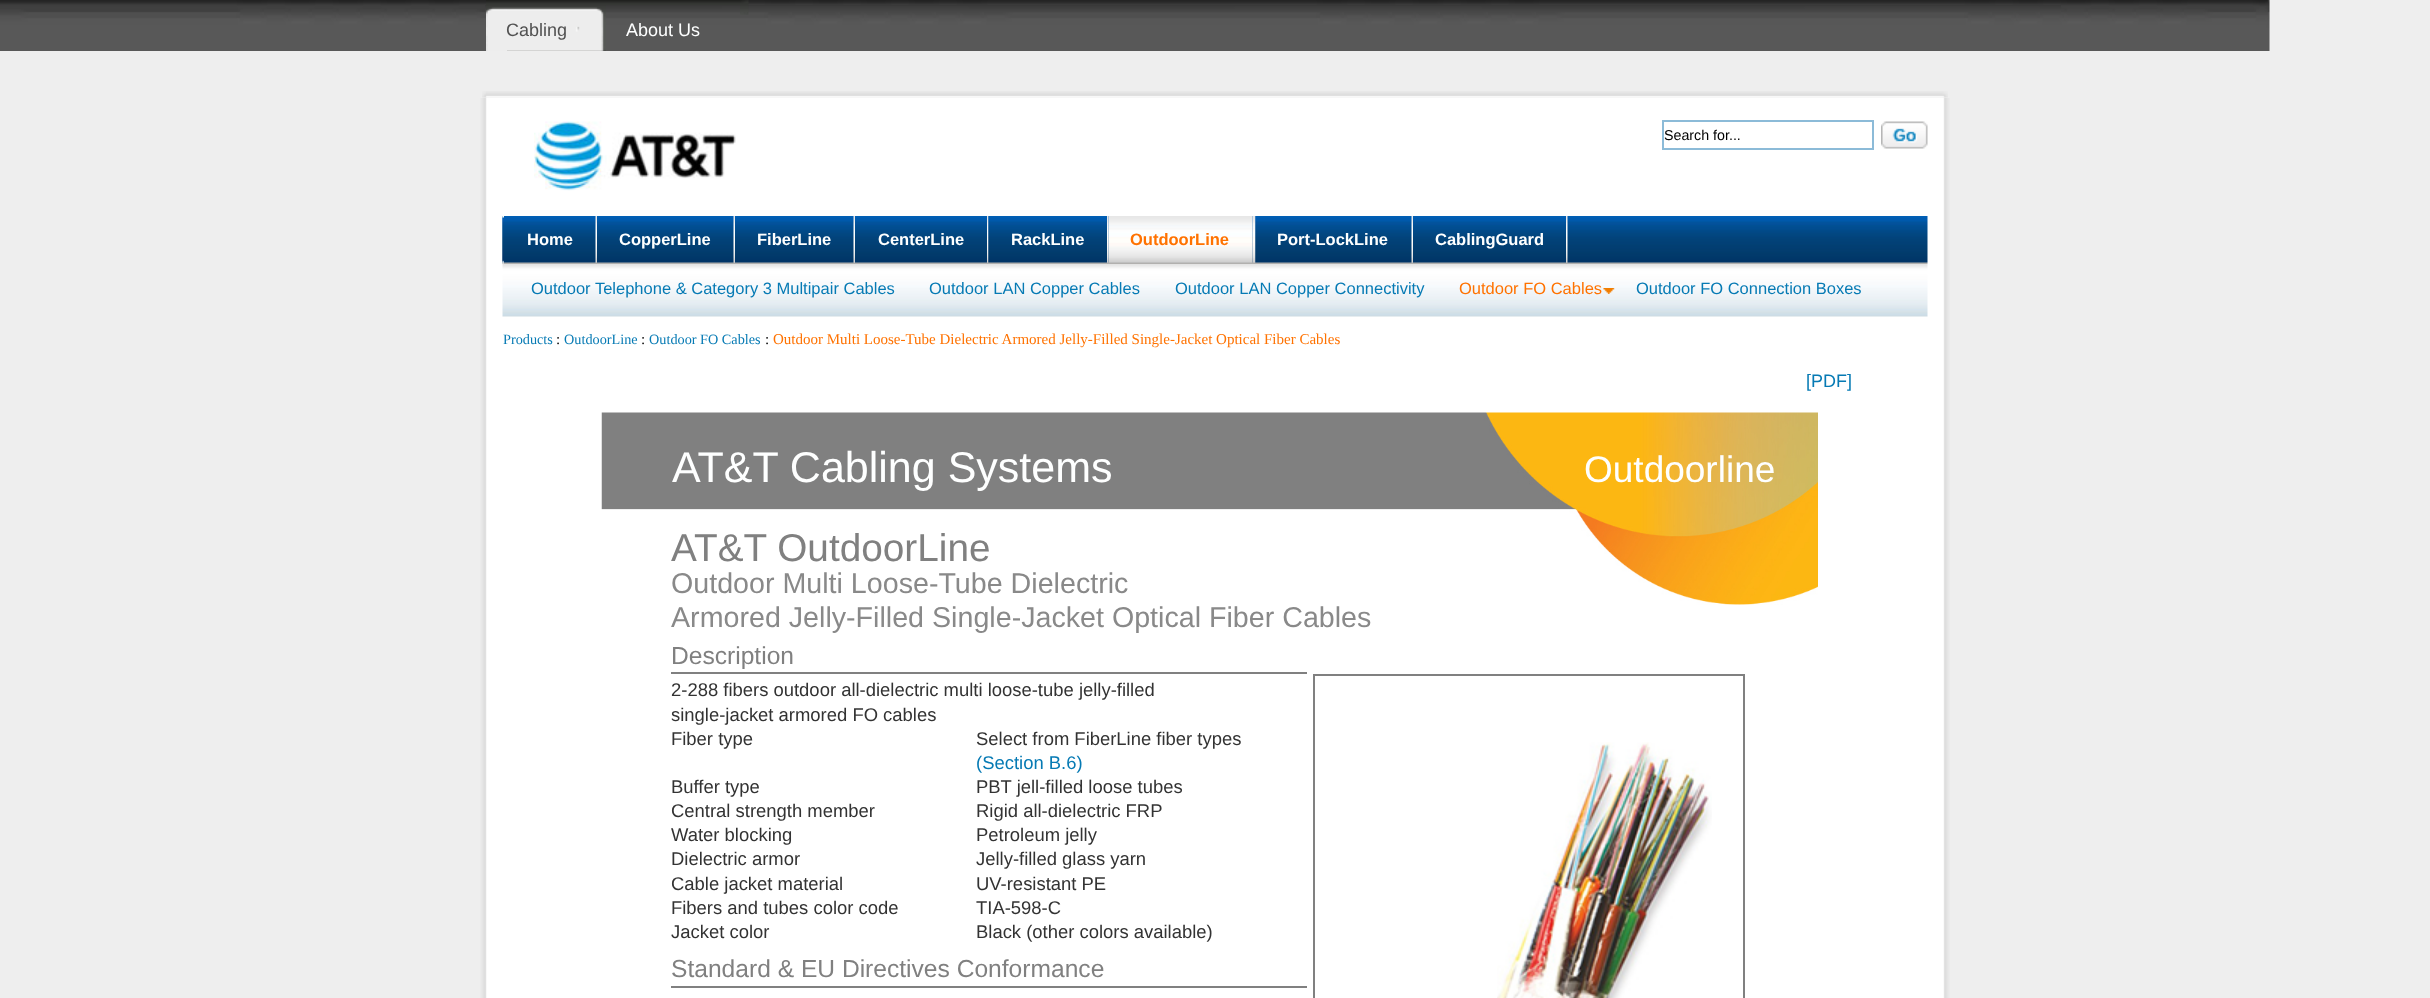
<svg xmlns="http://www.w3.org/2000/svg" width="2430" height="998">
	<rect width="100%" height="100%" fill="#EEEEEE" />
	<image x="0" y="0" width="2270" height="51" href="assets/img1.png" />
	<image x="485" y="5" width="1576" height="7" href="assets/img2.png" />
	<rect x="487" y="10" width="115" height="41" fill="#EDEDED" />
	<image x="486" y="0" width="21" height="51" href="assets/img3.png" />
	<image x="507" y="0" width="99" height="51" href="assets/img4.png" />
	<text x="506" y="36" font-family="Liberation Sans" font-size="18" fill="#515151">Cabling</text>
	<image x="606" y="0" width="134" height="5" href="assets/img5.png" />
	<image x="740" y="0" width="9" height="15" href="assets/img6.png" />
	<text x="626" y="36" font-family="Liberation Sans" font-size="18" fill="#FEFFFF">About Us</text>
	<image x="482" y="91" width="1466" height="7" href="assets/img7.png" />
	<image x="480" y="98" width="1470" height="900" href="assets/img8.png" />
	<image x="534" y="121" width="202" height="70" href="assets/img9.png" />
	<rect x="1663" y="121" width="210" height="28" fill="none" stroke="#8CBBD8" stroke-width="2" />
	<text x="1664" y="140" font-family="Liberation Sans" font-size="14.25" fill="#000000">Search for...</text>
	<image x="1881" y="121" width="47" height="28" href="assets/img10.png" />
	<image x="502" y="216" width="1426" height="48" href="assets/img11.png" />
	<image x="502" y="216" width="2" height="48" href="assets/img12.png" />
	<text x="527" y="245" font-family="Liberation Sans" font-size="16.5" font-weight="700" fill="#FEFFFF">Home</text>
	<image x="595" y="216" width="2" height="47" href="assets/img13.png" />
	<text x="619" y="245" font-family="Liberation Sans" font-size="16.5" font-weight="700" fill="#FEFFFF">CopperLine</text>
	<image x="733" y="216" width="2" height="47" href="assets/img13.png" />
	<text x="757" y="245" font-family="Liberation Sans" font-size="16.5" font-weight="700" fill="#FEFFFF">FiberLine</text>
	<image x="853" y="216" width="2" height="47" href="assets/img13.png" />
	<text x="878" y="245" font-family="Liberation Sans" font-size="16.5" font-weight="700" fill="#FEFFFF">CenterLine</text>
	<image x="987" y="216" width="2" height="47" href="assets/img14.png" />
	<image x="988" y="216" width="1" height="47" href="assets/img15.png" />
	<text x="1011" y="245" font-family="Liberation Sans" font-size="16.5" font-weight="700" fill="#FEFFFF">RackLine</text>
	<image x="1107" y="216" width="2" height="47" href="assets/img14.png" />
	<image x="1108" y="216" width="145" height="47" href="assets/img16.png" />
	<text x="1130" y="245" font-family="Liberation Sans" font-size="16.5" font-weight="700" fill="#FF7200">OutdoorLine</text>
	<image x="1252" y="216" width="2" height="47" href="assets/img17.png" />
	<image x="1254" y="216" width="2" height="47" href="assets/img14.png" />
	<image x="1255" y="216" width="1" height="47" href="assets/img15.png" />
	<text x="1277" y="245" font-family="Liberation Sans" font-size="16.5" font-weight="700" fill="#FEFFFF">Port-LockLine</text>
	<image x="1411" y="216" width="2" height="47" href="assets/img13.png" />
	<text x="1435" y="245" font-family="Liberation Sans" font-size="16.5" font-weight="700" fill="#FEFFFF">CablingGuard</text>
	<image x="1566" y="216" width="2" height="47" href="assets/img14.png" />
	<image x="502" y="264" width="1426" height="53" href="assets/img18.png" />
	<g font-family="Liberation Sans" font-size="16.5" fill="#067AB4">
		<text x="531" y="294">Outdoor Telephone &amp; Category 3 Multipair Cables</text>
		<text x="929" y="294">Outdoor LAN Copper Cables</text>
		<text x="1175" y="294">Outdoor LAN Copper Connectivity</text>
	</g>
	<image x="1603" y="288" width="12" height="6" href="assets/img19.png" />
	<text x="1459" y="294" font-family="Liberation Sans" font-size="16.5" fill="#FF7200">Outdoor FO Cables</text>
	<text x="1636" y="294" font-family="Liberation Sans" font-size="16.5" fill="#067AB4">Outdoor FO Connection Boxes</text>
	<text x="503" y="344" font-family="Liberation Serif" font-size="14.25" fill="#067AB4">Products</text>
	<text x="556" y="344" font-family="Liberation Serif" font-size="15" fill="#000000">:</text>
	<text x="564" y="344" font-family="Liberation Serif" font-size="14.25" fill="#067AB4">OutdoorLine</text>
	<text x="641" y="344" font-family="Liberation Serif" font-size="15" fill="#000000">:</text>
	<text x="649" y="344" font-family="Liberation Serif" font-size="14.25" fill="#067AB4">Outdoor FO Cables</text>
	<text x="765" y="344" font-family="Liberation Serif" font-size="15" fill="#000000">:</text>
	<text x="773" y="344" font-family="Liberation Serif" font-size="15" fill="#FF7200">Outdoor Multi Loose-Tube Dielectric Armored Jelly-Filled Single-Jacket Optical Fiber Cables</text>
	<text x="1806" y="387" font-family="Liberation Sans" font-size="18" fill="#067AB4">[PDF]</text>
	<image x="601" y="412" width="1217" height="193" href="assets/img20.png" />
	<text x="672" y="482" font-family="Liberation Sans" font-size="43" fill="#FEFFFF">AT&amp;T Cabling Systems</text>
	<text x="1584" y="482" font-family="Liberation Sans" font-size="37" fill="#FEFFFF">Outdoorline</text>
	<text x="671" y="561" font-family="Liberation Sans" font-size="38.75" fill="#808080">AT&amp;T OutdoorLine</text>
	<g font-family="Liberation Sans" font-size="28.65" fill="#898989">
		<text x="671" y="593">Outdoor Multi Loose-Tube Dielectric</text>
		<text x="671" y="627">Armored Jelly-Filled Single-Jacket Optical Fiber Cables</text>
	</g>
	<rect x="671" y="672" width="636" height="2" fill="#808080" />
	<text x="671" y="664" font-family="Liberation Sans" font-size="24.6" fill="#808080">Description</text>
	<text x="671" y="696" font-family="Liberation Sans" font-size="18.45" fill="#333333">2-288 fibers outdoor all-dielectric multi loose-tube jelly-filled</text>
	<image x="1497" y="742" width="215" height="256" href="assets/img21.png" />
	<rect x="1314" y="675" width="430" height="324" fill="none" stroke="#808080" stroke-width="2" />
	<g font-family="Liberation Sans" font-size="18.45" fill="#333333">
		<text x="671" y="721">single-jacket armored FO cables</text>
		<text x="671" y="745">Fiber type</text>
		<text x="976" y="745">Select from FiberLine fiber types</text>
	</g>
	<text x="976" y="769" font-family="Liberation Sans" font-size="18.45" fill="#067AB4">(Section B.6)</text>
	<g font-family="Liberation Sans" font-size="18.45" fill="#333333">
		<text x="671" y="793">Buffer type</text>
		<text x="976" y="793">PBT jell-filled loose tubes</text>
		<text x="671" y="817">Central strength member</text>
		<text x="976" y="817">Rigid all-dielectric FRP</text>
		<text x="671" y="841">Water blocking</text>
		<text x="976" y="841">Petroleum jelly</text>
		<text x="671" y="865">Dielectric armor</text>
		<text x="976" y="865">Jelly-filled glass yarn</text>
		<text x="671" y="890">Cable jacket material</text>
		<text x="976" y="890">UV-resistant PE</text>
		<text x="671" y="914">Fibers and tubes color code</text>
		<text x="976" y="914">TIA-598-C</text>
		<text x="671" y="938">Jacket color</text>
		<text x="976" y="938">Black (other colors available)</text>
	</g>
	<rect x="671" y="986" width="636" height="2" fill="#808080" />
	<text x="671" y="977" font-family="Liberation Sans" font-size="24.6" fill="#808080">Standard &amp; EU Directives Conformance</text>
</svg>
